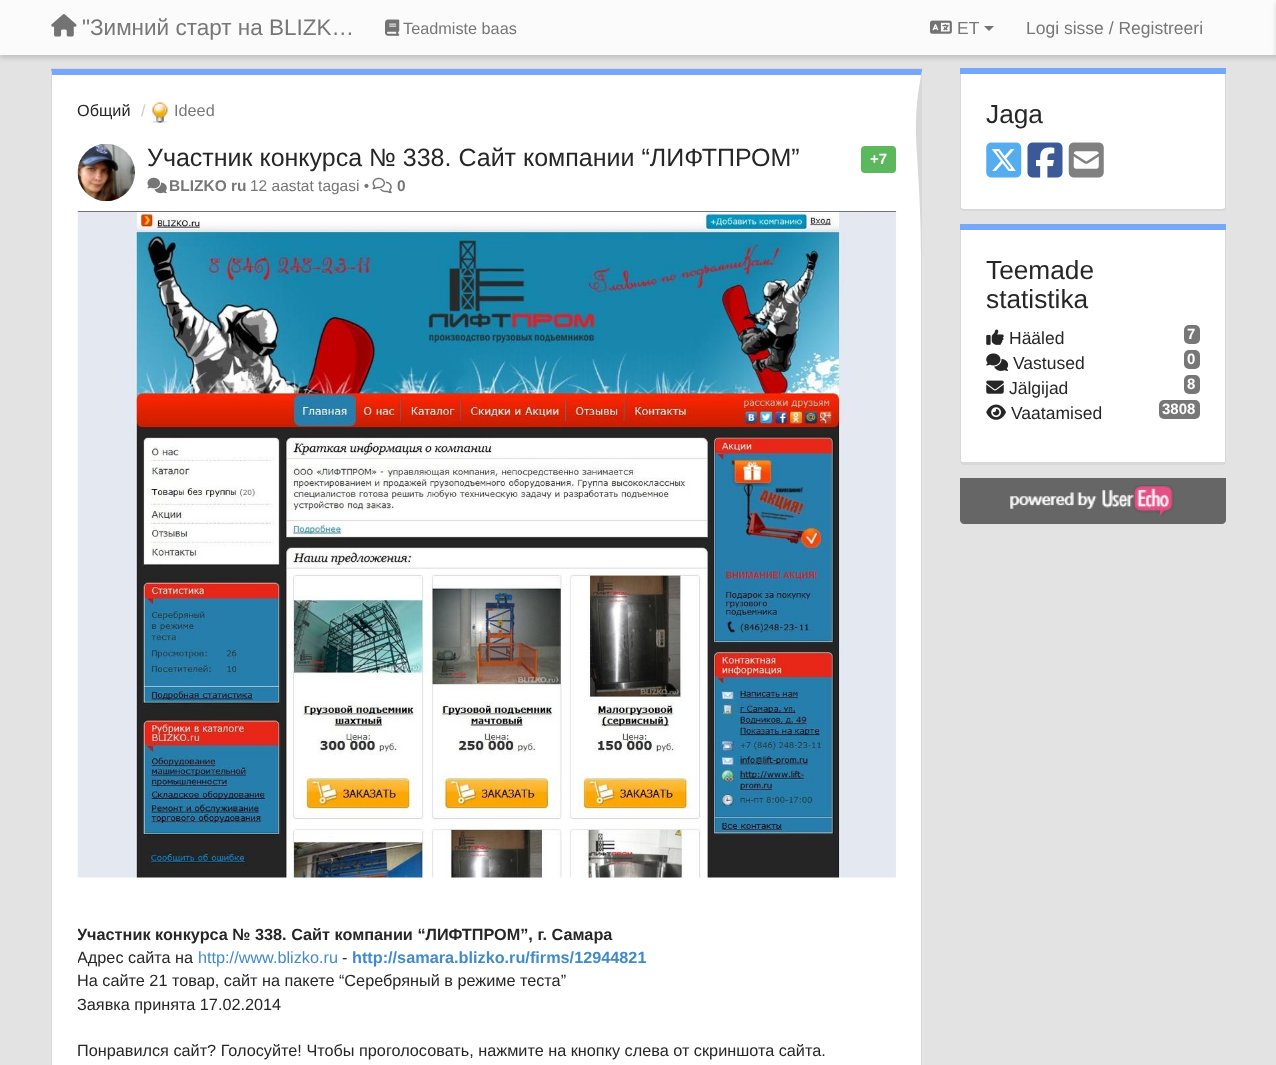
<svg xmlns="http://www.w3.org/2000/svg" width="1276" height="1065">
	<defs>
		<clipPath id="clip1"><rect x="78" y="211" width="818" height="854" /></clipPath>
	</defs>
	<rect width="100%" height="100%" fill="#E3E3E3" />
	<rect x="0" y="3" width="1276" height="55" fill="#000000" fill-opacity="0.15" filter="blur(2.5px)" />
	<rect x="0" y="0" width="1276" height="55" fill="#FBFBFB" />
	<image x="51" y="14" width="26" height="23" href="assets/img1.png" />
	<text x="82" y="35" font-family="Liberation Sans" font-size="22.5" fill="#777777">"Зимний старт на BLIZK…</text>
	<image x="385" y="19" width="15" height="17" href="assets/img2.png" />
	<text x="403" y="34" font-family="Liberation Sans" font-size="16.25" fill="#777777">Teadmiste baas</text>
	<image x="930" y="20" width="22" height="14" href="assets/img3.png" />
	<text x="957" y="34" font-family="Liberation Sans" font-size="17.5" fill="#777777">ET</text>
	<path d="M984 26H994L989 31Z" fill="#737373" />
	<text x="1026" y="34" font-family="Liberation Sans" font-size="17.5" fill="#777777">Logi sisse / Registreeri</text>
	<rect x="1276" y="3" width="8" height="55" fill="#000000" fill-opacity="0.15" filter="blur(2.5px)" />
	<rect x="51" y="68" width="872" height="1" fill="#D8D8D8" />
	<path d="M52 75H921V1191C921 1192 920 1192 919 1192H55C54 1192 52 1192 52 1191Z" fill="#FFFFFF" />
	<path d="M922 71V69H51L52 75H921V76Z" fill="#76A7FA" />
	<path d="M922 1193V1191V71C909 135 921 150 921 262V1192Z" fill="#D8D8D8" />
	<path d="M52 75V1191L53 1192L52 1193L51 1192V69Z" fill="#D8D8D8" />
	<text x="77" y="116" font-family="Liberation Sans" font-size="16.25" fill="#262626">Общий</text>
	<text x="141" y="116" font-family="Liberation Sans" font-size="16.25" fill="#CCCCCC">/</text>
	<image x="151" y="102" width="18" height="21" href="assets/img4.png" />
	<text x="174" y="116" font-family="Liberation Sans" font-size="16.25" fill="#777777">Ideed</text>
	<image x="77" y="144" width="58" height="58" href="assets/img5.png" />
	<text x="147" y="166" font-family="Liberation Sans" font-size="25" fill="#262626">Участник конкурса № 338. Сайт компании “ЛИФТПРОМ”</text>
	<rect x="861" y="146" width="35" height="27" rx="4" fill="#5CB85C" />
	<text x="870" y="164" font-family="Liberation Sans" font-size="15" font-weight="700" fill="#FFFFFF">+7</text>
	<image x="147" y="177" width="20" height="17" href="assets/img6.png" />
	<text x="169" y="191" font-family="Liberation Sans" font-size="15.5" font-weight="700" fill="#777777">BLIZKO ru</text>
	<text x="250" y="191" font-family="Liberation Sans" font-size="15.5" fill="#777777">12 aastat tagasi •</text>
	<image x="372" y="177" width="20" height="17" href="assets/img7.png" />
	<text x="397" y="191" font-family="Liberation Sans" font-size="15.5" font-weight="700" fill="#777777">0</text>
	<image x="77" y="211" width="820" height="667" href="assets/img8.png" />
	<g clip-path="url(#clip1)">
		<text x="77" y="940" font-family="Liberation Sans" font-size="16.25" font-weight="700" fill="#262626">Участник конкурса № 338. Сайт компании “ЛИФТПРОМ”, г. Самара</text>
		<text x="77" y="963" font-family="Liberation Sans" font-size="16.25" fill="#262626">Адрес сайта на</text>
	</g>
	<text x="198" y="963" font-family="Liberation Sans" font-size="16.25" fill="#428BCA">http://www.blizko.ru</text>
	<text x="342" y="963" font-family="Liberation Sans" font-size="16.25" fill="#262626">-</text>
	<text x="352" y="963" font-family="Liberation Sans" font-size="16.25" font-weight="700" fill="#428BCA">http://samara.blizko.ru/firms/12944821</text>
	<g font-family="Liberation Sans" font-size="16.25" fill="#262626">
		<text x="77" y="986">На сайте 21 товар, сайт на пакете “Серебряный в режиме теста”</text>
		<text x="77" y="1010">Заявка принята 17.02.2014</text>
		<text x="77" y="1056">Понравился сайт? Голосуйте! Чтобы проголосовать, нажмите на кнопку слева от скриншота сайта.</text>
	</g>
	<rect x="960" y="68" width="266" height="6" fill="#76A7FA" />
	<path d="M961 74H1225V208C1225 208 1224 209 1222 209H964C962 209 961 208 961 208Z" fill="#FFFFFF" />
	<path d="M960 74H1226V208C1226 210 1225 211 1222 211H964C962 211 960 210 960 208ZM961 74H1225V208C1225 208 1224 209 1222 209H964C962 209 961 208 961 208Z" fill="#D8D8D8" fill-rule="evenodd" />
	<text x="986" y="123" font-family="Liberation Sans" font-size="26.25" fill="#262626">Jaga</text>
	<image x="986" y="142" width="36" height="36" href="assets/img9.png" />
	<image x="1027" y="142" width="36" height="36" href="assets/img10.png" />
	<image x="1068" y="142" width="36" height="36" href="assets/img11.png" />
	<rect x="960" y="224" width="266" height="6" fill="#76A7FA" />
	<path d="M961 230H1225V462H1222H964C963 462 961 462 961 461Z" fill="#FFFFFF" />
	<path d="M960 230H1226V461C1226 463 1225 465 1222 465H964C962 465 960 463 960 461ZM961 230H1225V462H1222H964C963 462 961 462 961 461Z" fill="#D8D8D8" fill-rule="evenodd" />
	<g font-family="Liberation Sans" font-size="26.25" fill="#262626">
		<text x="986" y="279">Teemade</text>
		<text x="986" y="308">statistika</text>
	</g>
	<image x="986" y="329" width="18" height="16" href="assets/img12.png" />
	<text x="1009" y="344" font-family="Liberation Sans" font-size="17.5" fill="#262626">Hääled</text>
	<rect x="1184" y="325" width="16" height="19" rx="5" fill="#777777" />
	<text x="1187" y="339" font-family="Liberation Sans" font-size="15" font-weight="700" fill="#FFFFFF">7</text>
	<image x="986" y="353" width="23" height="18" href="assets/img13.png" />
	<text x="1013" y="369" font-family="Liberation Sans" font-size="17.5" fill="#262626">Vastused</text>
	<rect x="1184" y="350" width="16" height="19" rx="5" fill="#777777" />
	<text x="1187" y="364" font-family="Liberation Sans" font-size="15" font-weight="700" fill="#FFFFFF">0</text>
	<image x="986" y="380" width="18" height="14" href="assets/img14.png" />
	<text x="1009" y="394" font-family="Liberation Sans" font-size="17.5" fill="#262626">Jälgijad</text>
	<rect x="1184" y="375" width="16" height="19" rx="5" fill="#777777" />
	<text x="1187" y="389" font-family="Liberation Sans" font-size="15" font-weight="700" fill="#FFFFFF">8</text>
	<image x="986" y="404" width="20" height="16" href="assets/img15.png" />
	<text x="1011" y="419" font-family="Liberation Sans" font-size="17.5" fill="#262626">Vaatamised</text>
	<rect x="1159" y="400" width="41" height="19" rx="5" fill="#777777" />
	<text x="1162" y="414" font-family="Liberation Sans" font-size="15" font-weight="700" fill="#FFFFFF">3808</text>
	<path d="M960 478H1226V520C1226 522 1224 524 1222 524H964C962 524 960 522 960 520Z" fill="#666666" />
	<image x="1010" y="485" width="164" height="32" href="assets/img16.png" />
</svg>
